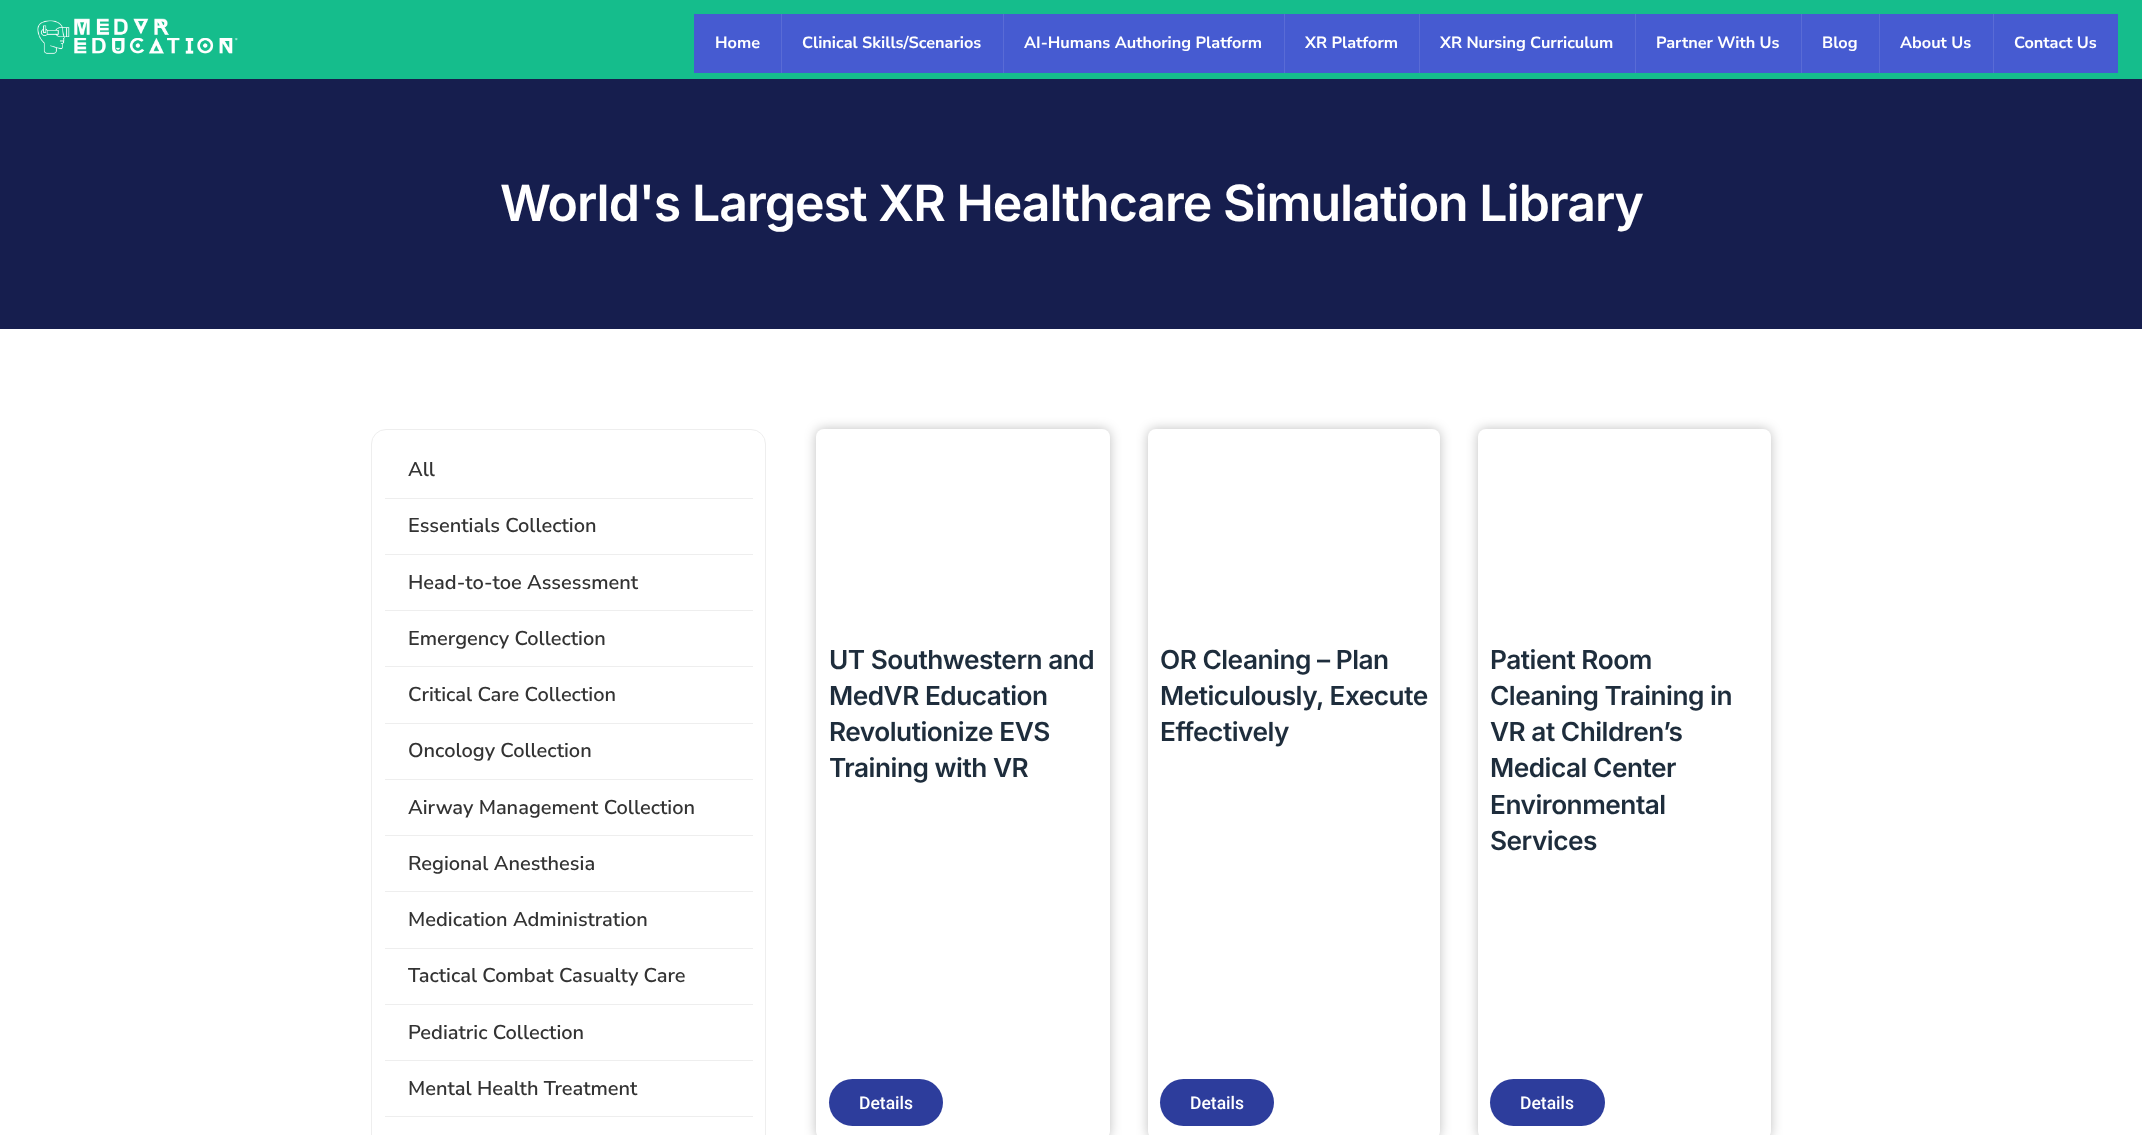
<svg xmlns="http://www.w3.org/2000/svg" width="2142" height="1135">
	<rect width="100%" height="100%" fill="#FFFFFF" />
	<rect x="0" y="0" width="2142" height="79" fill="#15BD8C" />
	<image x="37" y="18" width="201" height="36" href="assets/img1.png" />
	<rect x="694" y="14" width="1424" height="59" fill="#465BD1" />
	<text x="715" y="48" font-family="Nunito Sans" font-size="16.25" font-weight="700" fill="#FFFFFF">Home</text>
	<rect x="781" y="14" width="1" height="59" fill="#596BD6" />
	<text x="802" y="48" font-family="Nunito Sans" font-size="16.25" font-weight="700" fill="#FFFFFF">Clinical Skills/Scenarios</text>
	<rect x="1003" y="14" width="1" height="59" fill="#596BD6" />
	<text x="1024" y="48" font-family="Nunito Sans" font-size="16.25" font-weight="700" fill="#FFFFFF">AI-Humans Authoring Platform</text>
	<rect x="1284" y="14" width="1" height="59" fill="#596BD6" />
	<text x="1305" y="48" font-family="Nunito Sans" font-size="16.25" font-weight="700" fill="#FFFFFF">XR Platform</text>
	<rect x="1419" y="14" width="1" height="59" fill="#596BD6" />
	<text x="1440" y="48" font-family="Nunito Sans" font-size="16.25" font-weight="700" fill="#FFFFFF">XR Nursing Curriculum</text>
	<rect x="1635" y="14" width="1" height="59" fill="#596BD6" />
	<text x="1656" y="48" font-family="Nunito Sans" font-size="16.25" font-weight="700" fill="#FFFFFF">Partner With Us</text>
	<rect x="1801" y="14" width="1" height="59" fill="#596BD6" />
	<text x="1822" y="48" font-family="Nunito Sans" font-size="16.25" font-weight="700" fill="#FFFFFF">Blog</text>
	<rect x="1879" y="14" width="1" height="59" fill="#596BD6" />
	<text x="1900" y="48" font-family="Nunito Sans" font-size="16.25" font-weight="700" fill="#FFFFFF">About Us</text>
	<rect x="1993" y="14" width="1" height="59" fill="#596BD6" />
	<text x="2014" y="48" font-family="Nunito Sans" font-size="16.25" font-weight="700" fill="#FFFFFF">Contact Us</text>
	<rect x="0" y="79" width="2142" height="250" fill="#161E4E" />
	<text x="500" y="221" font-family="Inter" font-size="50" font-weight="600" letter-spacing="-1" fill="#FFFFFF">World's Largest XR Healthcare Simulation Library</text>
	<rect x="371.5" y="429.5" width="394" height="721" rx="14.5" fill="none" stroke="#EEEEEE" />
	<rect x="385" y="498" width="368" height="1" fill="#EEEEEE" />
	<text x="408" y="476" font-family="Nunito Sans" font-size="20" font-weight="600" fill="#333333">All</text>
	<rect x="385" y="554" width="368" height="1" fill="#EEEEEE" />
	<text x="408" y="532" font-family="Nunito Sans" font-size="20" font-weight="600" fill="#333333">Essentials Collection</text>
	<rect x="385" y="610" width="368" height="1" fill="#EEEEEE" />
	<text x="408" y="589" font-family="Nunito Sans" font-size="20" font-weight="600" fill="#333333">Head-to-toe Assessment</text>
	<rect x="385" y="666" width="368" height="1" fill="#EEEEEE" />
	<text x="408" y="645" font-family="Nunito Sans" font-size="20" font-weight="600" fill="#333333">Emergency Collection</text>
	<rect x="385" y="723" width="368" height="1" fill="#EEEEEE" />
	<text x="408" y="701" font-family="Nunito Sans" font-size="20" font-weight="600" fill="#333333">Critical Care Collection</text>
	<rect x="385" y="779" width="368" height="1" fill="#EEEEEE" />
	<text x="408" y="757" font-family="Nunito Sans" font-size="20" font-weight="600" fill="#333333">Oncology Collection</text>
	<rect x="385" y="835" width="368" height="1" fill="#EEEEEE" />
	<text x="408" y="814" font-family="Nunito Sans" font-size="20" font-weight="600" fill="#333333">Airway Management Collection</text>
	<rect x="385" y="891" width="368" height="1" fill="#EEEEEE" />
	<text x="408" y="870" font-family="Nunito Sans" font-size="20" font-weight="600" fill="#333333">Regional Anesthesia</text>
	<rect x="385" y="948" width="368" height="1" fill="#EEEEEE" />
	<text x="408" y="926" font-family="Nunito Sans" font-size="20" font-weight="600" fill="#333333">Medication Administration</text>
	<rect x="385" y="1004" width="368" height="1" fill="#EEEEEE" />
	<text x="408" y="982" font-family="Nunito Sans" font-size="20" font-weight="600" fill="#333333">Tactical Combat Casualty Care</text>
	<rect x="385" y="1060" width="368" height="1" fill="#EEEEEE" />
	<text x="408" y="1039" font-family="Nunito Sans" font-size="20" font-weight="600" fill="#333333">Pediatric Collection</text>
	<rect x="385" y="1116" width="368" height="1" fill="#EEEEEE" />
	<text x="408" y="1095" font-family="Nunito Sans" font-size="20" font-weight="600" fill="#333333">Mental Health Treatment</text>
	<rect x="816" y="429" width="294" height="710" rx="8" fill="#000000" fill-opacity="0.25" filter="blur(6px)" />
	<rect x="816" y="429" width="294" height="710" rx="8" fill="#FFFFFF" />
	<g font-family="Inter" font-size="26.25" font-weight="600" letter-spacing="-0.5" fill="#1E2D3C">
		<text x="829" y="669">UT Southwestern and</text>
		<text x="829" y="705">MedVR Education</text>
		<text x="829" y="741">Revolutionize EVS</text>
		<text x="829" y="777">Training with VR</text>
	</g>
	<rect x="829" y="1079" width="114" height="47" rx="23.5" fill="#2D3D9C" />
	<text x="859" y="1109" font-family="Roboto" font-size="17.5" font-weight="500" fill="#FFFFFF">Details</text>
	<rect x="1148" y="429" width="292" height="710" rx="8" fill="#000000" fill-opacity="0.25" filter="blur(6px)" />
	<rect x="1148" y="429" width="292" height="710" rx="8" fill="#FFFFFF" />
	<g font-family="Inter" font-size="26.25" font-weight="600" letter-spacing="-0.5" fill="#1E2D3C">
		<text x="1160" y="669">OR Cleaning – Plan</text>
		<text x="1160" y="705">Meticulously, Execute</text>
		<text x="1160" y="741">Effectively</text>
	</g>
	<rect x="1160" y="1079" width="114" height="47" rx="23.5" fill="#2D3D9C" />
	<text x="1190" y="1109" font-family="Roboto" font-size="17.5" font-weight="500" fill="#FFFFFF">Details</text>
	<rect x="1478" y="429" width="293" height="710" rx="8" fill="#000000" fill-opacity="0.25" filter="blur(6px)" />
	<rect x="1478" y="429" width="293" height="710" rx="8" fill="#FFFFFF" />
	<g font-family="Inter" font-size="26.25" font-weight="600" letter-spacing="-0.5" fill="#1E2D3C">
		<text x="1490" y="669">Patient Room</text>
		<text x="1490" y="705">Cleaning Training in</text>
		<text x="1490" y="741">VR at Children’s</text>
		<text x="1490" y="777">Medical Center</text>
		<text x="1490" y="814">Environmental</text>
		<text x="1490" y="850">Services</text>
	</g>
	<rect x="1490" y="1079" width="115" height="47" rx="23.5" fill="#2D3D9C" />
	<text x="1520" y="1109" font-family="Roboto" font-size="17.5" font-weight="500" fill="#FFFFFF">Details</text>
</svg>
